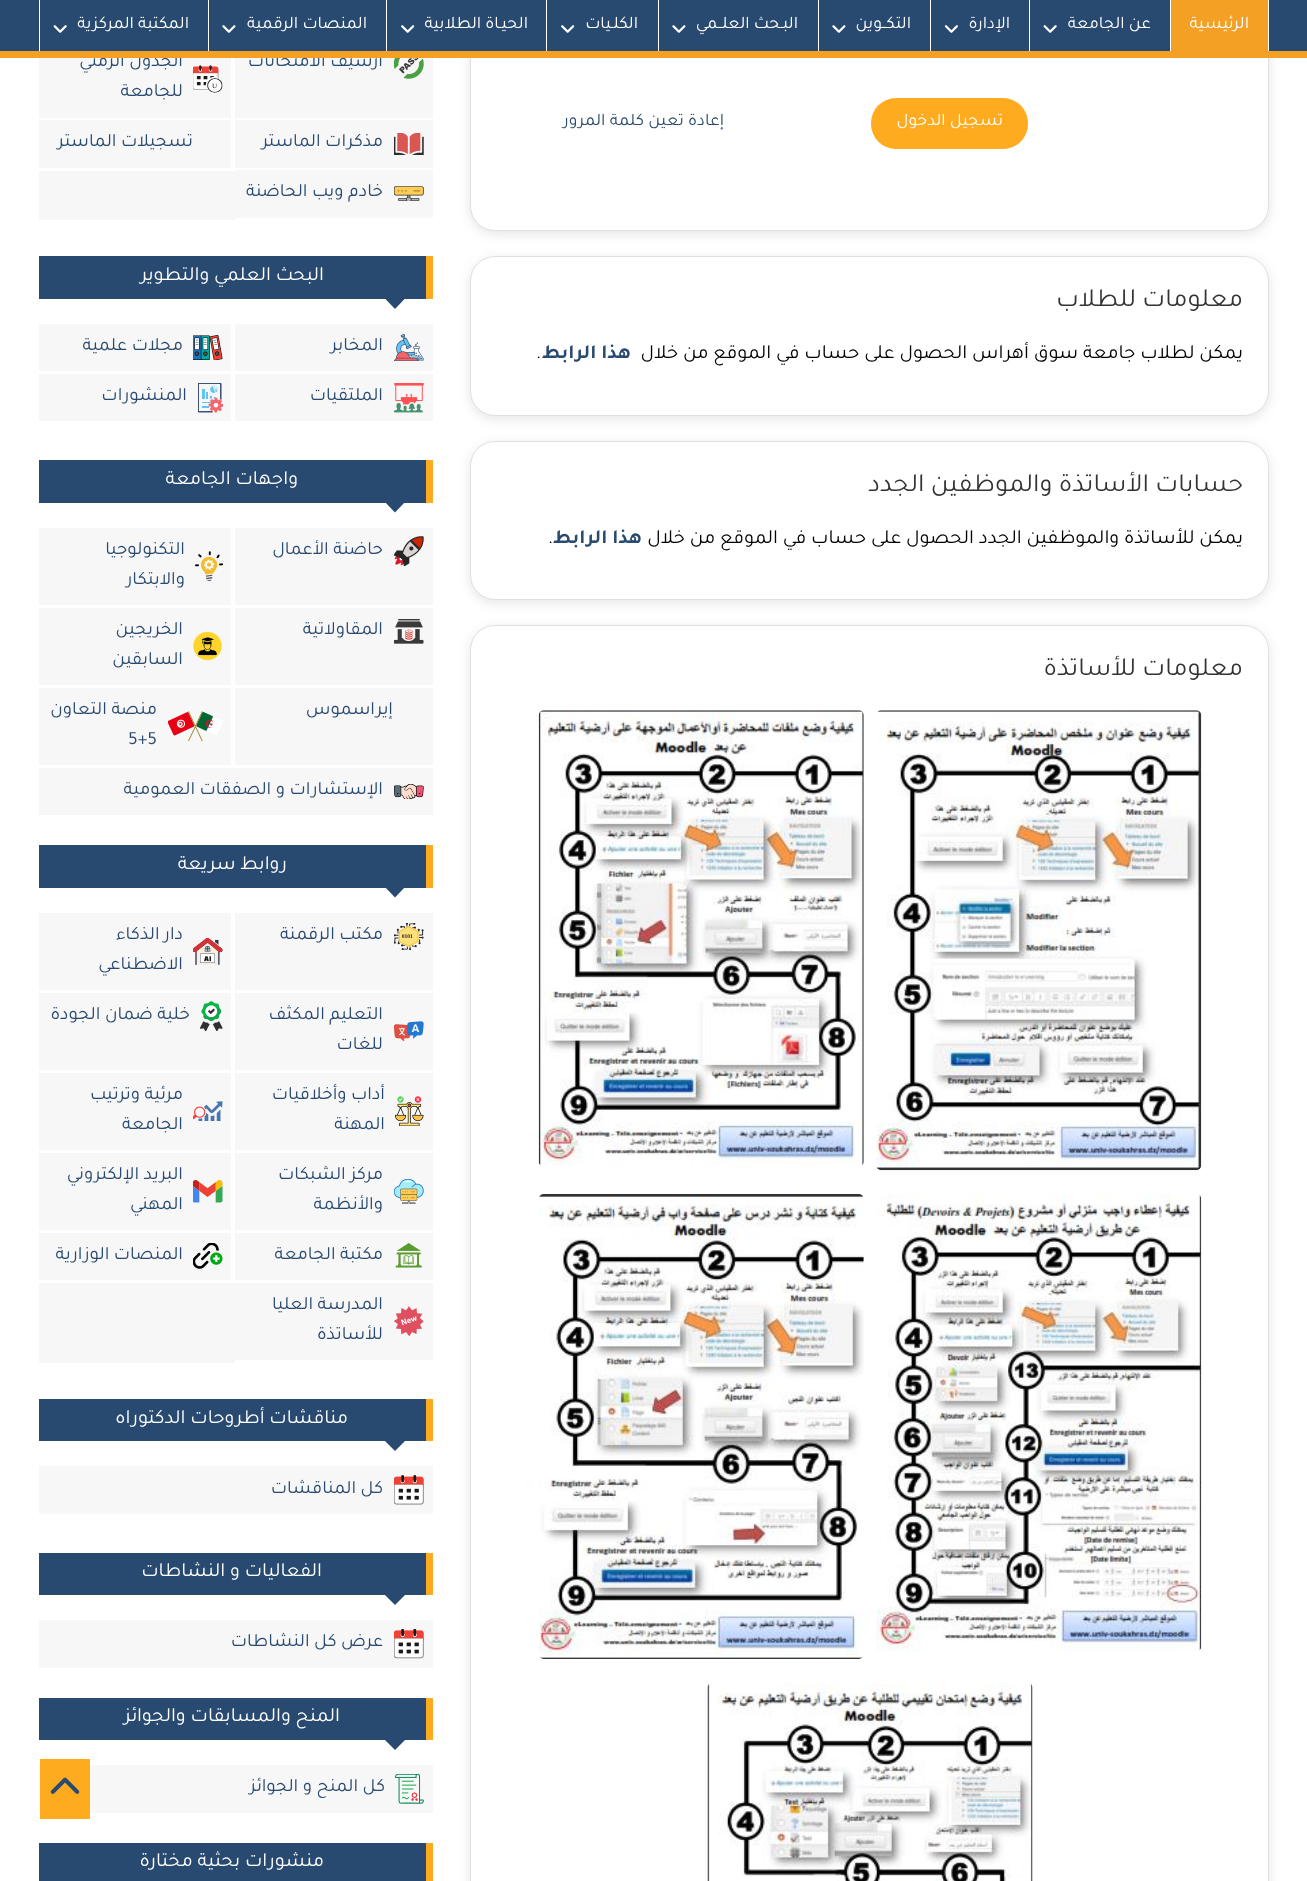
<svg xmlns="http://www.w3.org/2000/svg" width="1307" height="1881">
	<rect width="100%" height="100%" fill="#FFFFFF" />
	<rect x="470" y="-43" width="799" height="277" rx="25" fill="#000000" fill-opacity="0.1" filter="blur(6px)" />
	<rect x="470.5" y="-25.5" width="798" height="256" rx="24.5" fill="#FFFFFF" stroke="#E0E0E0" />
	<rect x="0" y="0" width="1307" height="51" fill="#294A70" />
	<rect x="235" y="58" width="198" height="60" fill="#F7F7F7" />
	<text x="383" y="66" font-family="Tajawal" font-size="18.75" direction="rtl" fill="#294A70">أرشيف الامتحانات</text>
	<rect x="39" y="58" width="192" height="60" fill="#F7F7F7" />
	<text x="183" y="66" font-family="Tajawal" font-size="18.75" direction="rtl" fill="#294A70">الجدول الزمني</text>
	<rect x="0" y="51" width="1307" height="7" fill="#F4A024" />
	<rect x="1171" y="0" width="97" height="51" fill="#F4A024" />
	<rect x="1268" y="0" width="1" height="51" fill="#FFFFFF" />
	<rect x="1170" y="0" width="1" height="51" fill="#FFFFFF" />
	<text x="1249" y="28" font-family="Tajawal" font-size="17.5" direction="rtl" fill="#FFFFFF">الرئيسية</text>
	<rect x="1029" y="0" width="1" height="51" fill="#FFFFFF" />
	<text x="1151" y="28" font-family="Tajawal" font-size="17.5" direction="rtl" fill="#FFFFFF">عن الجامعة</text>
	<image x="1043" y="25" width="14" height="8" href="assets/img1.png" />
	<rect x="930" y="0" width="1" height="51" fill="#FFFFFF" />
	<text x="1010" y="28" font-family="Tajawal" font-size="17.5" direction="rtl" fill="#FFFFFF">الإدارة</text>
	<image x="944" y="25" width="14" height="8" href="assets/img2.png" />
	<rect x="818" y="0" width="1" height="51" fill="#FFFFFF" />
	<text x="911" y="28" font-family="Tajawal" font-size="17.5" direction="rtl" fill="#FFFFFF">التكــوين</text>
	<image x="832" y="25" width="14" height="8" href="assets/img3.png" />
	<rect x="658" y="0" width="1" height="51" fill="#FFFFFF" />
	<text x="798" y="28" font-family="Tajawal" font-size="17.5" direction="rtl" fill="#FFFFFF">البـحث العلــمي</text>
	<image x="672" y="25" width="14" height="8" href="assets/img3.png" />
	<rect x="546" y="0" width="1" height="51" fill="#FFFFFF" />
	<text x="638" y="28" font-family="Tajawal" font-size="17.5" direction="rtl" fill="#FFFFFF">الكلـيات</text>
	<image x="561" y="25" width="14" height="8" href="assets/img4.png" />
	<rect x="386" y="0" width="1" height="51" fill="#FFFFFF" />
	<text x="528" y="28" font-family="Tajawal" font-size="17.5" direction="rtl" fill="#FFFFFF">الحيـاة الطلابية</text>
	<image x="401" y="25" width="14" height="8" href="assets/img4.png" />
	<rect x="208" y="0" width="1" height="51" fill="#FFFFFF" />
	<text x="367" y="28" font-family="Tajawal" font-size="17.5" direction="rtl" fill="#FFFFFF">المنصات الرقمية</text>
	<image x="222" y="25" width="14" height="8" href="assets/img3.png" />
	<rect x="39" y="0" width="1" height="51" fill="#FFFFFF" />
	<text x="189" y="28" font-family="Tajawal" font-size="17.5" direction="rtl" fill="#FFFFFF">المكتبة المركزية</text>
	<image x="53" y="25" width="14" height="8" href="assets/img1.png" />
	<rect x="871" y="98" width="157" height="51" rx="25" fill="#FFAB1F" />
	<text x="1003" y="125" font-family="Tajawal" font-size="17.5" direction="rtl" fill="#FFFFFF">تسجيل الدخول</text>
	<text x="724" y="125" font-family="Tajawal" font-size="17.5" direction="rtl" fill="#294A70">إعادة تعين كلمة المرور</text>
	<rect x="470" y="259" width="799" height="160" rx="25" fill="#000000" fill-opacity="0.1" filter="blur(6px)" />
	<rect x="470.5" y="256.5" width="798" height="159" rx="24.5" fill="#FFFFFF" stroke="#E0E0E0" />
	<text x="1243" y="306" font-family="Tajawal" font-size="26.25" direction="rtl" fill="#333333">معلومات للطلاب</text>
	<text x="1243" y="358" font-family="Tajawal" font-size="20" direction="rtl" fill="#000000">يمكن لطلاب جامعة سوق أهراس الحصول على حساب في الموقع من خلال</text>
	<text x="631" y="358" font-family="Tajawal" font-size="20" font-weight="700" direction="rtl" fill="#294A70">هذا الرابط</text>
	<text x="536" y="358" font-family="Tajawal" font-size="20" fill="#000000">.</text>
	<rect x="470" y="444" width="799" height="159" rx="25" fill="#000000" fill-opacity="0.1" filter="blur(6px)" />
	<rect x="470.5" y="441.5" width="798" height="158" rx="24.5" fill="#FFFFFF" stroke="#E0E0E0" />
	<text x="1243" y="491" font-family="Tajawal" font-size="26.25" direction="rtl" fill="#333333">حسابات الأساتذة والموظفين الجدد</text>
	<text x="1243" y="543" font-family="Tajawal" font-size="20" direction="rtl" fill="#000000">يمكن للأساتذة والموظفين الجدد الحصول على حساب في الموقع من خلال</text>
	<text x="642" y="543" font-family="Tajawal" font-size="20" font-weight="700" direction="rtl" fill="#294A70">هذا الرابط</text>
	<text x="548" y="543" font-family="Tajawal" font-size="20" fill="#000000">.</text>
	<rect x="470" y="628" width="799" height="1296" rx="25" fill="#000000" fill-opacity="0.1" filter="blur(6px)" />
	<rect x="470.5" y="625.5" width="798" height="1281" rx="24.5" fill="#FFFFFF" stroke="#E0E0E0" />
	<text x="1243" y="675" font-family="Tajawal" font-size="26.25" direction="rtl" fill="#333333">معلومات للأساتذة</text>
	<image x="876" y="710" width="326" height="461" href="assets/img5.png" />
	<image x="538" y="710" width="326" height="456" href="assets/img6.png" />
	<image x="876" y="1194" width="326" height="458" href="assets/img7.png" />
	<image x="539" y="1194" width="325" height="465" href="assets/img8.png" />
	<image x="707" y="1683" width="326" height="198" href="assets/img9.png" />
	<rect x="39" y="171" width="196" height="49" fill="#F7F7F7" />
	<image x="394" y="58" width="30" height="21" href="assets/img10.png" />
	<image x="193" y="65" width="30" height="28" href="assets/img11.png" />
	<text x="183" y="96" font-family="Tajawal" font-size="18.75" direction="rtl" fill="#294A70">للجامعة</text>
	<rect x="235" y="120" width="198" height="48" fill="#F7F7F7" />
	<image x="394" y="133" width="30" height="22" href="assets/img12.png" />
	<text x="383" y="146" font-family="Tajawal" font-size="18.75" direction="rtl" fill="#294A70">مذكرات الماستر</text>
	<rect x="39" y="120" width="192" height="48" fill="#F7F7F7" />
	<text x="193" y="146" font-family="Tajawal" font-size="18.75" direction="rtl" fill="#294A70">تسجيلات الماستر</text>
	<rect x="235" y="170" width="198" height="48" fill="#F7F7F7" />
	<image x="394" y="186" width="30" height="15" href="assets/img13.png" />
	<text x="383" y="196" font-family="Tajawal" font-size="18.75" direction="rtl" fill="#294A70">خادم ويب الحاضنة</text>
	<rect x="39" y="256" width="387" height="43" fill="#294A70" />
	<rect x="426" y="256" width="7" height="43" fill="#FFAB1F" />
	<text x="324" y="280" font-family="Tajawal" font-size="20" direction="rtl" fill="#FFFFFF">البحث العلمي والتطوير</text>
	<path d="M384 297.5H406L395 309Z" fill="#294A70" />
	<rect x="39" y="324" width="394" height="97" fill="#F7F7F7" />
	<rect x="235" y="371" width="198" height="3" fill="#FFFFFF" />
	<image x="394" y="334" width="30" height="27" href="assets/img14.png" />
	<text x="383" y="350" font-family="Tajawal" font-size="18.75" direction="rtl" fill="#294A70">المخابر</text>
	<rect x="231" y="324" width="4" height="100" fill="#FFFFFF" />
	<rect x="39" y="371" width="196" height="3" fill="#FFFFFF" />
	<image x="193" y="335" width="30" height="25" href="assets/img15.png" />
	<text x="183" y="350" font-family="Tajawal" font-size="18.75" direction="rtl" fill="#294A70">مجلات علمية</text>
	<image x="394" y="383" width="30" height="30" href="assets/img16.png" />
	<text x="383" y="400" font-family="Tajawal" font-size="18.75" direction="rtl" fill="#294A70">الملتقيات</text>
	<image x="198" y="383" width="25" height="30" href="assets/img17.png" />
	<text x="187" y="400" font-family="Tajawal" font-size="18.75" direction="rtl" fill="#294A70">المنشورات</text>
	<rect x="39" y="460" width="387" height="43" fill="#294A70" />
	<rect x="426" y="460" width="7" height="43" fill="#FFAB1F" />
	<text x="298" y="484" font-family="Tajawal" font-size="20" direction="rtl" fill="#FFFFFF">واجهات الجامعة</text>
	<path d="M384 501H406L395 512.5Z" fill="#294A70" />
	<rect x="39" y="528" width="394" height="287" fill="#F7F7F7" />
	<rect x="235" y="605" width="198" height="3" fill="#FFFFFF" />
	<image x="394" y="536" width="30" height="30" href="assets/img18.png" />
	<text x="383" y="554" font-family="Tajawal" font-size="18.75" direction="rtl" fill="#294A70">حاضنة الأعمال</text>
	<rect x="231" y="528" width="4" height="240" fill="#FFFFFF" />
	<rect x="39" y="605" width="196" height="3" fill="#FFFFFF" />
	<image x="195" y="551" width="28" height="30" href="assets/img19.png" />
	<g font-family="Tajawal" font-size="18.75" direction="rtl" fill="#294A70">
		<text x="185" y="554">التكنولوجيا</text>
		<text x="185" y="584">والابتكار</text>
	</g>
	<rect x="39" y="685" width="394" height="3" fill="#FFFFFF" />
	<image x="394" y="619" width="30" height="25" href="assets/img20.png" />
	<text x="383" y="634" font-family="Tajawal" font-size="18.75" direction="rtl" fill="#294A70">المقاولاتية</text>
	<image x="193" y="631" width="29" height="30" href="assets/img21.png" />
	<g font-family="Tajawal" font-size="18.75" direction="rtl" fill="#294A70">
		<text x="183" y="634">الخريجين</text>
		<text x="183" y="664">السابقين</text>
	</g>
	<rect x="39" y="765" width="394" height="3" fill="#FFFFFF" />
	<text x="393" y="714" font-family="Tajawal" font-size="18.75" direction="rtl" fill="#294A70">إيراسموس</text>
	<image x="168" y="711" width="55" height="30" href="assets/img22.png" />
	<text x="157" y="714" font-family="Tajawal" font-size="18.75" direction="rtl" fill="#294A70">منصة التعاون</text>
	<text x="128" y="744" font-family="Tajawal" font-size="18.75" fill="#294A70">5+5</text>
	<image x="394" y="784" width="30" height="15" href="assets/img23.png" />
	<text x="383" y="794" font-family="Tajawal" font-size="18.75" direction="rtl" fill="#294A70">الإستشارات و الصفقات العمومية</text>
	<rect x="39" y="845" width="387" height="43" fill="#294A70" />
	<rect x="426" y="845" width="7" height="43" fill="#FFAB1F" />
	<text x="287" y="869" font-family="Tajawal" font-size="20" direction="rtl" fill="#FFFFFF">روابط سريعة</text>
	<path d="M384 886H406L395 897.5Z" fill="#294A70" />
	<rect x="39" y="913" width="394" height="450" fill="#F7F7F7" />
	<rect x="235" y="990" width="198" height="3" fill="#FFFFFF" />
	<image x="394" y="923" width="30" height="27" href="assets/img24.png" />
	<text x="383" y="939" font-family="Tajawal" font-size="18.75" direction="rtl" fill="#294A70">مكتب الرقمنة</text>
	<rect x="231" y="913" width="4" height="370" fill="#FFFFFF" />
	<rect x="39" y="990" width="196" height="3" fill="#FFFFFF" />
	<text x="183" y="939" font-family="Tajawal" font-size="18.75" direction="rtl" fill="#294A70">دار الذكاء</text>
	<image x="193" y="938" width="30" height="27" href="assets/img25.png" />
	<text x="183" y="969" font-family="Tajawal" font-size="18.75" direction="rtl" fill="#294A70">الاضطناعي</text>
	<rect x="39" y="1070" width="394" height="3" fill="#FFFFFF" />
	<text x="383" y="1019" font-family="Tajawal" font-size="18.75" direction="rtl" fill="#294A70">التعليم المكثف</text>
	<image x="394" y="1021" width="30" height="20" href="assets/img26.png" />
	<text x="383" y="1049" font-family="Tajawal" font-size="18.75" direction="rtl" fill="#294A70">للغات</text>
	<image x="200" y="1001" width="23" height="30" href="assets/img27.png" />
	<text x="190" y="1019" font-family="Tajawal" font-size="18.75" direction="rtl" fill="#294A70">خلية ضمان الجودة</text>
	<rect x="39" y="1150" width="394" height="3" fill="#FFFFFF" />
	<text x="385" y="1099" font-family="Tajawal" font-size="18.75" direction="rtl" fill="#294A70">أداب وأخلاقيات</text>
	<image x="395" y="1096" width="29" height="30" href="assets/img28.png" />
	<g font-family="Tajawal" font-size="18.75" direction="rtl" fill="#294A70">
		<text x="385" y="1129">المهنة</text>
		<text x="183" y="1099">مرئية وترتيب</text>
	</g>
	<image x="193" y="1101" width="30" height="20" href="assets/img29.png" />
	<text x="183" y="1129" font-family="Tajawal" font-size="18.75" direction="rtl" fill="#294A70">الجامعة</text>
	<rect x="39" y="1230" width="394" height="3" fill="#FFFFFF" />
	<text x="383" y="1179" font-family="Tajawal" font-size="18.75" direction="rtl" fill="#294A70">مركز الشبكات</text>
	<image x="394" y="1179" width="30" height="25" href="assets/img30.png" />
	<g font-family="Tajawal" font-size="18.75" direction="rtl" fill="#294A70">
		<text x="383" y="1209">والأنظمة</text>
		<text x="183" y="1179">البريد الإلكتروني</text>
	</g>
	<image x="193" y="1180" width="30" height="23" href="assets/img31.png" />
	<text x="183" y="1209" font-family="Tajawal" font-size="18.75" direction="rtl" fill="#294A70">المهني</text>
	<rect x="39" y="1280" width="394" height="3" fill="#FFFFFF" />
	<image x="395" y="1243" width="27" height="25" href="assets/img32.png" />
	<text x="383" y="1259" font-family="Tajawal" font-size="18.75" direction="rtl" fill="#294A70">مكتبة الجامعة</text>
	<image x="193" y="1243" width="30" height="26" href="assets/img33.png" />
	<text x="183" y="1259" font-family="Tajawal" font-size="18.75" direction="rtl" fill="#294A70">المنصات الوزارية</text>
	<rect x="235" y="1360" width="198" height="3" fill="#FFFFFF" />
	<image x="394" y="1306" width="30" height="30" href="assets/img34.png" />
	<g font-family="Tajawal" font-size="18.75" direction="rtl" fill="#294A70">
		<text x="383" y="1309">المدرسة العليا</text>
		<text x="383" y="1339">للأساتذة</text>
	</g>
	<rect x="39" y="1399" width="387" height="42" fill="#294A70" />
	<rect x="426" y="1399" width="7" height="42" fill="#FFAB1F" />
	<text x="348" y="1423" font-family="Tajawal" font-size="20" direction="rtl" fill="#FFFFFF">مناقشات أطروحات الدكتوراه</text>
	<path d="M384 1440H406L395 1451Z" fill="#294A70" />
	<rect x="39" y="1466" width="394" height="48" fill="#F7F7F7" />
	<image x="394" y="1475" width="30" height="30" href="assets/img35.png" />
	<text x="383" y="1493" font-family="Tajawal" font-size="18.75" direction="rtl" fill="#294A70">كل المناقشات</text>
	<rect x="39" y="1553" width="387" height="42" fill="#294A70" />
	<rect x="426" y="1553" width="7" height="42" fill="#FFAB1F" />
	<text x="322" y="1576" font-family="Tajawal" font-size="20" direction="rtl" fill="#FFFFFF">الفعاليات و النشاطات</text>
	<path d="M384 1594H406L395 1605Z" fill="#294A70" />
	<rect x="39" y="1620" width="394" height="48" fill="#F7F7F7" />
	<image x="394" y="1629" width="30" height="30" href="assets/img36.png" />
	<text x="383" y="1646" font-family="Tajawal" font-size="18.75" direction="rtl" fill="#294A70">عرض كل النشاطات</text>
	<rect x="39" y="1698" width="387" height="42" fill="#294A70" />
	<rect x="426" y="1698" width="7" height="42" fill="#FFAB1F" />
	<text x="340" y="1721" font-family="Tajawal" font-size="20" direction="rtl" fill="#FFFFFF">المنح والمسابقات والجوائز</text>
	<path d="M384 1739H406L395 1750Z" fill="#294A70" />
	<rect x="39" y="1765" width="394" height="48" fill="#F7F7F7" />
	<image x="395" y="1774" width="29" height="30" href="assets/img37.png" />
	<text x="385" y="1791" font-family="Tajawal" font-size="18.75" direction="rtl" fill="#294A70">كل المنح و الجوائز</text>
	<rect x="39" y="1843" width="387" height="38" fill="#294A70" />
	<rect x="426" y="1843" width="7" height="38" fill="#FFAB1F" />
	<text x="324" y="1866" font-family="Tajawal" font-size="20" direction="rtl" fill="#FFFFFF">منشورات بحثية مختارة</text>
	<rect x="40" y="1759" width="50" height="60" fill="#FFAB1F" />
	<image x="50" y="1777" width="30" height="17" href="assets/img38.png" />
</svg>
